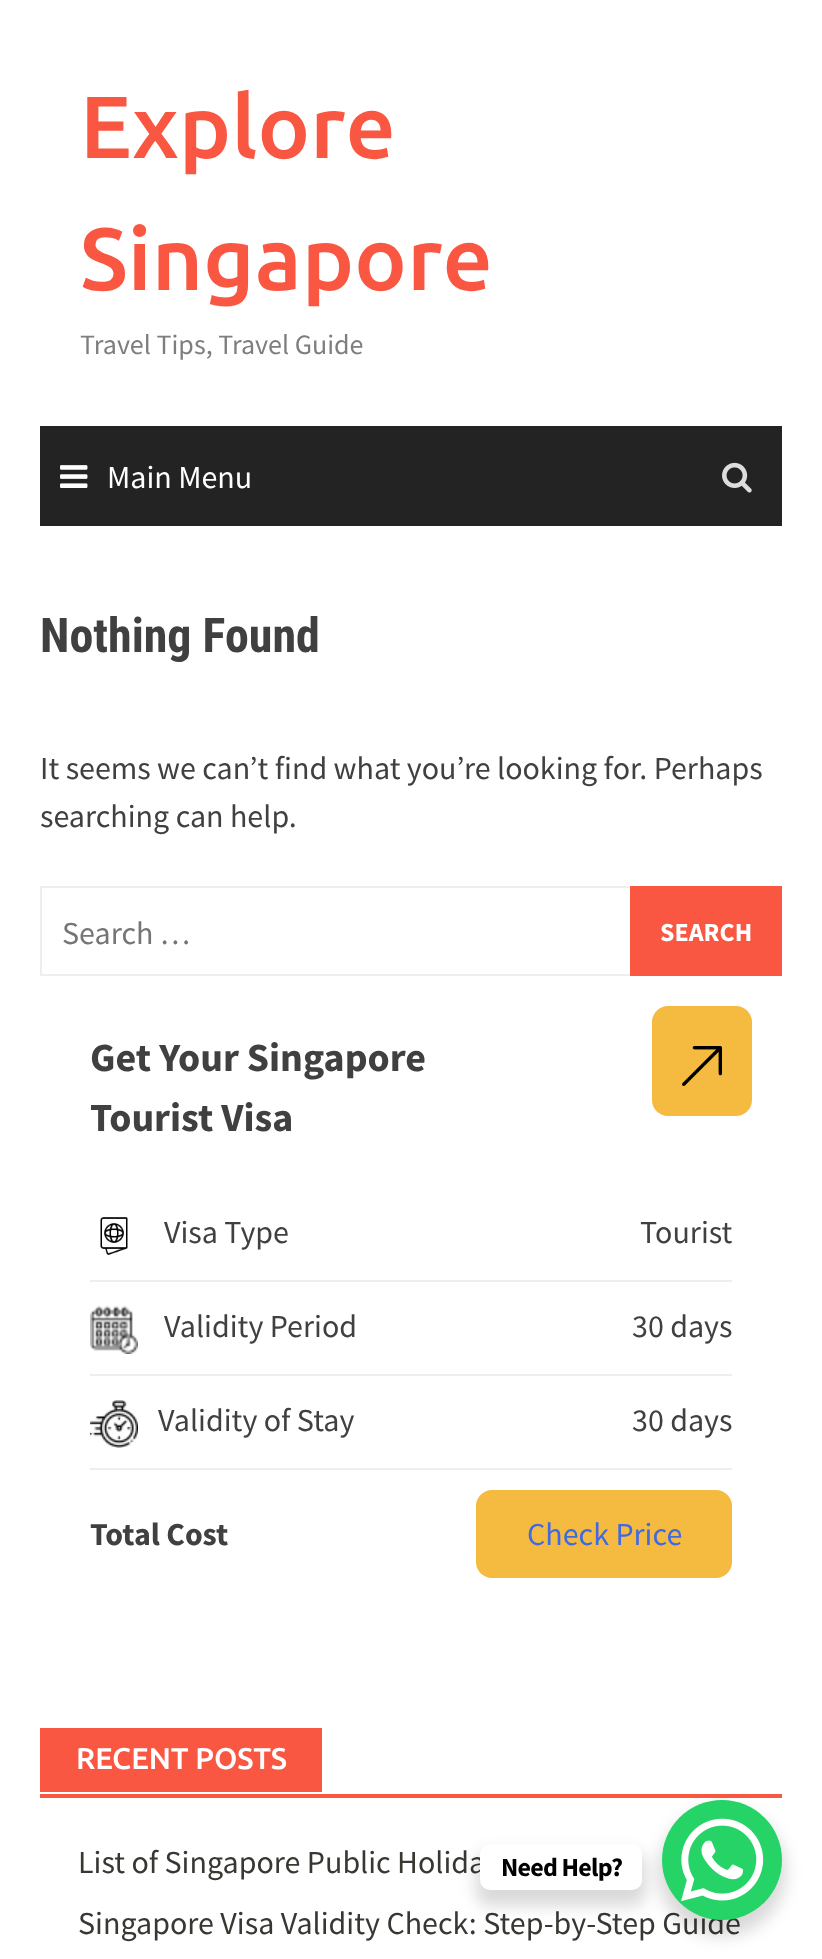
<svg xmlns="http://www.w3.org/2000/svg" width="822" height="1959">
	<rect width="100%" height="100%" fill="#FFFFFF" />
	<g font-family="Ubuntu" font-size="88" font-weight="500" fill="#FA5742">
		<text x="80" y="158">Explore</text>
		<text x="80" y="290">Singapore</text>
	</g>
	<text x="80" y="354" font-family="Source Sans Pro" font-size="28" fill="#7E7E7E">Travel Tips, Travel Guide</text>
	<rect x="40" y="426" width="742" height="100" fill="#232323" />
	<image x="60" y="465" width="28" height="23" href="assets/img1.png" />
	<text x="107" y="488" font-family="Source Sans Pro" font-size="32" fill="#FFFFFF">Main Menu</text>
	<image x="722" y="462" width="30" height="31" href="assets/img2.png" />
	<text x="40" y="652" font-family="Roboto Condensed" font-size="48" font-weight="700" fill="#404040">Nothing Found</text>
	<g font-family="Source Sans Pro" font-size="32" fill="#404040">
		<text x="40" y="779">It seems we can’t find what you’re looking for. Perhaps</text>
		<text x="40" y="827">searching can help.</text>
	</g>
	<rect x="41" y="887" width="740" height="88" fill="none" stroke="#EEEEEE" stroke-width="2" />
	<text x="62" y="944" font-family="Source Sans Pro" font-size="32" fill="#757575">Search …</text>
	<rect x="630" y="886" width="152" height="90" fill="#FA5742" />
	<text x="660" y="941" font-family="Source Sans Pro" font-size="26" font-weight="700" fill="#FFFFFF">SEARCH</text>
	<g font-family="Source Sans Pro" font-size="40" font-weight="700" fill="#404040">
		<text x="90" y="1071">Get Your Singapore</text>
		<text x="90" y="1131">Tourist Visa</text>
	</g>
	<rect x="652" y="1006" width="100" height="110" rx="16" fill="#F4BB40" />
	<image x="682" y="1046" width="40" height="40" href="assets/img3.png" />
	<rect x="90" y="1280" width="642" height="2" fill="#EEEEEE" />
	<image x="100" y="1217" width="28" height="38" href="assets/img4.png" />
	<g font-family="Source Sans Pro" font-size="32" fill="#404040">
		<text x="164" y="1243">Visa Type</text>
		<text x="640" y="1243">Tourist</text>
	</g>
	<rect x="90" y="1374" width="642" height="2" fill="#EEEEEE" />
	<image x="90" y="1306" width="48" height="48" href="assets/img5.png" />
	<g font-family="Source Sans Pro" font-size="32" fill="#404040">
		<text x="164" y="1337">Validity Period</text>
		<text x="632" y="1337">30 days</text>
	</g>
	<rect x="90" y="1468" width="642" height="2" fill="#EEEEEE" />
	<image x="90" y="1400" width="48" height="48" href="assets/img6.png" />
	<g font-family="Source Sans Pro" font-size="32" fill="#404040">
		<text x="158" y="1431">Validity of Stay</text>
		<text x="632" y="1431">30 days</text>
	</g>
	<text x="90" y="1545" font-family="Source Sans Pro" font-size="32" font-weight="700" fill="#404040">Total Cost</text>
	<rect x="476" y="1490" width="256" height="88" rx="16" fill="#F4BB40" />
	<text x="527" y="1545" font-family="Source Sans Pro" font-size="32" fill="#4169E1">Check Price</text>
	<rect x="40" y="1794" width="742" height="4" fill="#FA5742" />
	<rect x="40" y="1728" width="282" height="64" fill="#FA5742" />
	<text x="76" y="1769" font-family="Ubuntu" font-size="30" font-weight="500" fill="#FFFFFF">RECENT POSTS</text>
	<g font-family="Source Sans Pro" font-size="32" fill="#383732">
		<text x="78" y="1873">List of Singapore Public Holida</text>
		<text x="78" y="1934">Singapore Visa Validity Check: Step-by-Step Guide</text>
	</g>
	<rect x="658" y="1808" width="128" height="128" rx="64" fill="#000000" fill-opacity="0.15" filter="blur(8px)" />
	<circle cx="722" cy="1860" r="60" fill="#25D366" />
	<rect x="476" y="1852" width="170" height="54" rx="14" fill="#000000" fill-opacity="0.15" filter="blur(8px)" />
	<rect x="480" y="1844" width="162" height="46" rx="10" fill="#FFFFFF" />
	<text x="501" y="1876" font-family="Source Sans Pro" font-size="26" font-weight="700" letter-spacing="-0.75" fill="#000000">Need Help?</text>
	<image x="681" y="1818" width="83" height="84" href="assets/img7.png" />
</svg>
